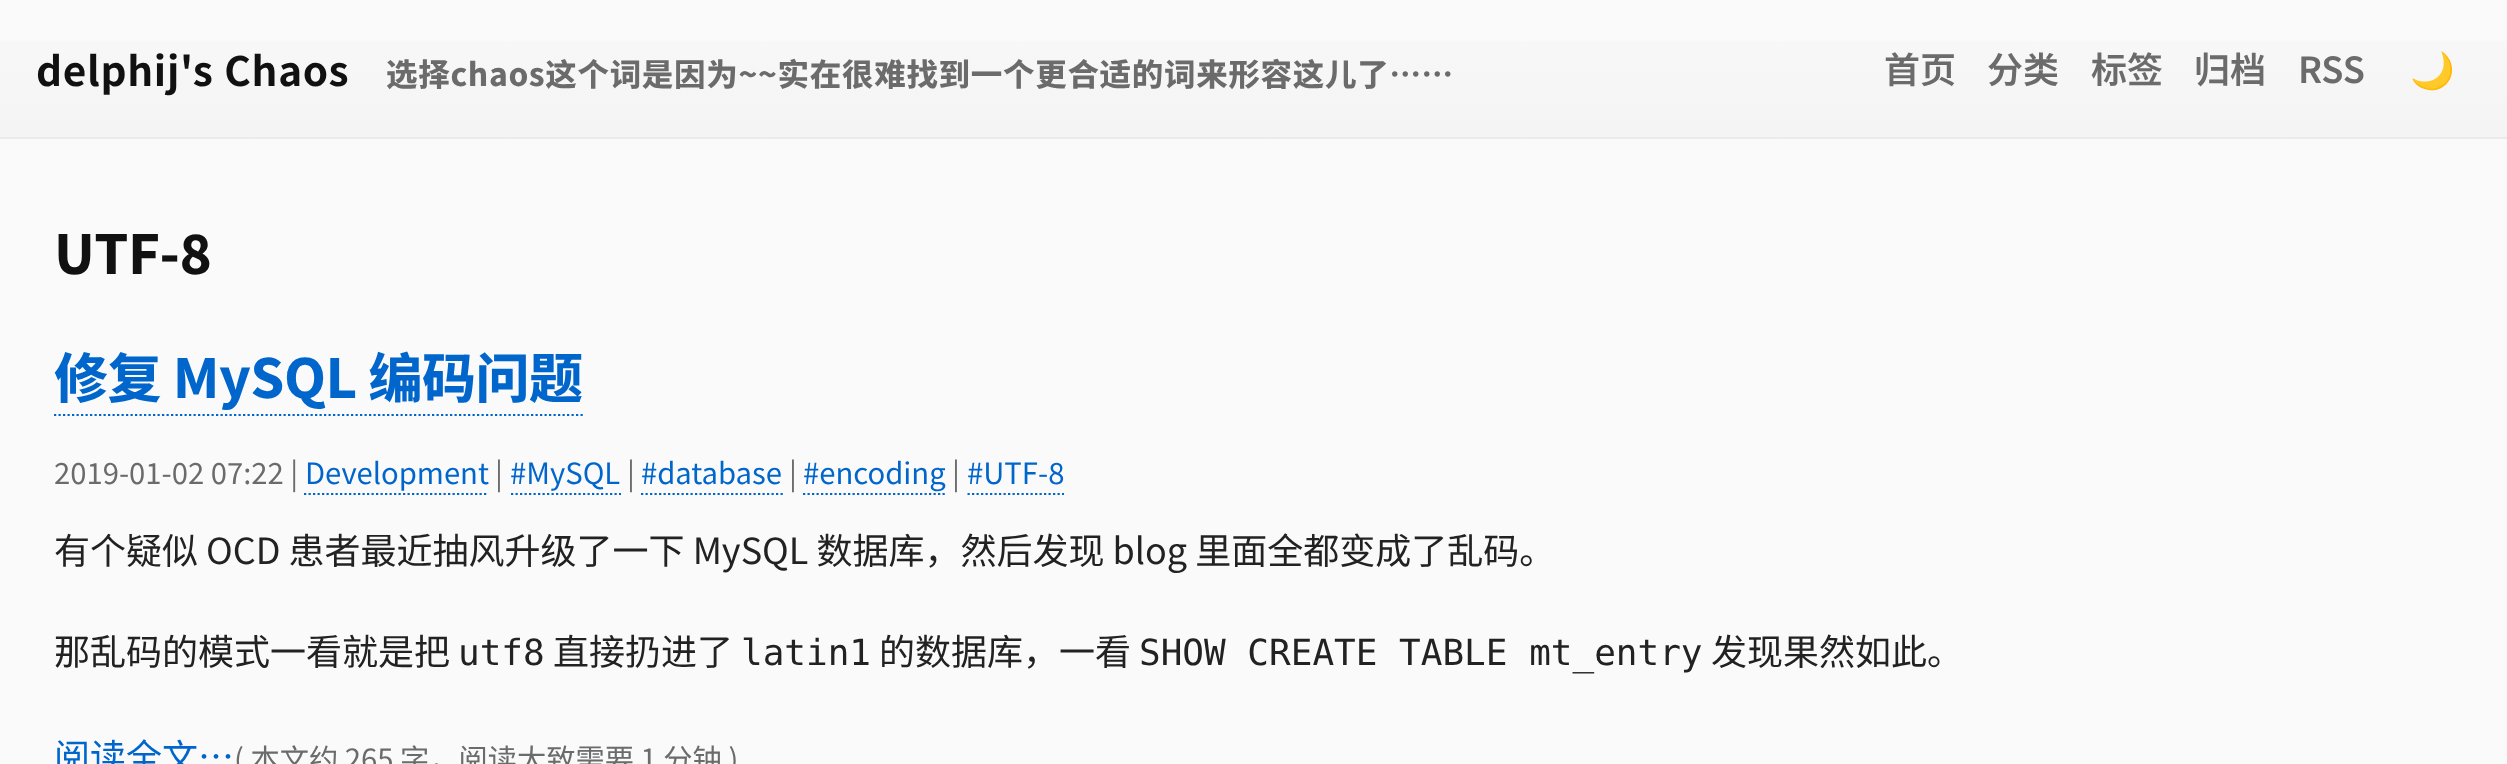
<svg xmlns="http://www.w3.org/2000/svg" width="2507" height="764">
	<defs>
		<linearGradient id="g1" gradientUnits="userSpaceOnUse" x1="1254" y1="0" x2="1254" y2="137"><stop offset="0" stop-color="#F9F9F9" /><stop offset="1" stop-color="#F4F4F4" /></linearGradient>
	</defs>
	<rect width="100%" height="100%" fill="#FAFAFA" />
	<rect x="0" y="41" width="2507" height="96" fill="url(#g1)" />
	<rect x="0" y="137" width="2507" height="2" fill="#EBEBEB" />
	<text x="36" y="86" word-spacing="1" font-family="Noto Sans SC" font-size="40.5" font-weight="700" letter-spacing="0.7" fill="#111111">delphij's Chaos</text>
	<text x="386" y="86" font-family="Noto Sans SC" font-size="31.5" font-weight="800" letter-spacing="0.7" fill="#6B6B6B">选择chaos这个词是因为~~实在很难找到一个更合适的词来形容这儿了……</text>
	<g font-family="Noto Sans SC" font-size="36" font-weight="600" fill="#6B6B6B">
		<text x="1884" y="83">首页</text>
		<text x="1987" y="83">分类</text>
		<text x="2091" y="83">标签</text>
		<text x="2194" y="83">归档</text>
		<text x="2298" y="83">RSS</text>
	</g>
	<text x="2410" y="83" font-family="Noto Color Emoji" font-size="36" font-weight="700" fill="#000000">🌙</text>
	<text x="54" y="274" font-family="Noto Sans SC" font-size="54" font-weight="800" letter-spacing="-0.5" fill="#111111">UTF-8</text>
	<text x="54" y="398" font-family="Noto Sans SC" font-size="54" font-weight="800" letter-spacing="-0.5" fill="#0066CC">修复 MySQL 编码问题</text>
	<path d="M54 415H583" fill="none" stroke="#0066CC" stroke-width="2.2" stroke-dasharray="2.25 2.25" />
	<text x="54" y="484" font-family="Noto Sans SC" font-size="29.25" fill="#6B6B6B">2019-01-02 07:22 |</text>
	<text x="305" y="484" font-family="Noto Sans SC" font-size="29.25" fill="#0066CC">Development</text>
	<path d="M304 494H488" fill="none" stroke="#0066CC" stroke-width="2.2" stroke-dasharray="2.25 2.25" />
	<text x="495" y="484" font-family="Noto Sans SC" font-size="29.25" fill="#6B6B6B">|</text>
	<text x="510" y="484" font-family="Noto Sans SC" font-size="29.25" fill="#0066CC">#MySQL</text>
	<path d="M511 494H621" fill="none" stroke="#0066CC" stroke-width="2.2" stroke-dasharray="2.25 2.25" />
	<text x="627" y="484" font-family="Noto Sans SC" font-size="29.25" fill="#6B6B6B">|</text>
	<text x="641" y="484" font-family="Noto Sans SC" font-size="29.25" fill="#0066CC">#database</text>
	<path d="M641 494H783" fill="none" stroke="#0066CC" stroke-width="2.2" stroke-dasharray="2.25 2.25" />
	<text x="789" y="484" font-family="Noto Sans SC" font-size="29.25" fill="#6B6B6B">|</text>
	<text x="803" y="484" font-family="Noto Sans SC" font-size="29.25" fill="#0066CC">#encoding</text>
	<path d="M803 494H945" fill="none" stroke="#0066CC" stroke-width="2.2" stroke-dasharray="2.25 2.25" />
	<text x="952" y="484" font-family="Noto Sans SC" font-size="29.25" fill="#6B6B6B">|</text>
	<text x="967" y="484" font-family="Noto Sans SC" font-size="29.25" fill="#0066CC">#UTF-8</text>
	<path d="M967.5 494H1064" fill="none" stroke="#0066CC" stroke-width="2.2" stroke-dasharray="2.25 2.25" />
	<g font-family="Noto Sans SC" font-size="36" fill="#222222">
		<text x="54" y="564">有个疑似 OCD 患者最近抽风升级了一下 MySQL 数据库，然后发现 blog 里面全都变成了乱码。</text>
		<text x="54" y="665">那乱码的模式一看就是把</text>
	</g>
	<text x="458" y="665" font-family="DejaVu Sans Mono" font-size="36" fill="#222222">utf8</text>
	<text x="553" y="665" font-family="Noto Sans SC" font-size="36" fill="#222222">直接扔进了</text>
	<text x="741" y="665" font-family="DejaVu Sans Mono" font-size="36" fill="#222222">latin1</text>
	<text x="879" y="665" font-family="Noto Sans SC" font-size="36" fill="#222222">的数据库，一看</text>
	<text x="1139" y="665" font-family="DejaVu Sans Mono" font-size="36" fill="#222222">SHOW CREATE TABLE mt_entry</text>
	<text x="1711" y="665" font-family="Noto Sans SC" font-size="36" fill="#222222">发现果然如此。</text>
	<text x="54" y="770" font-family="Noto Sans SC" font-size="36" fill="#0066CC">阅读全文…</text>
	<text x="234" y="770" font-family="Noto Sans SC" font-size="29.25" fill="#6B6B6B">( 本文约 265 字，阅读大致需要 1 分钟 )</text>
</svg>
